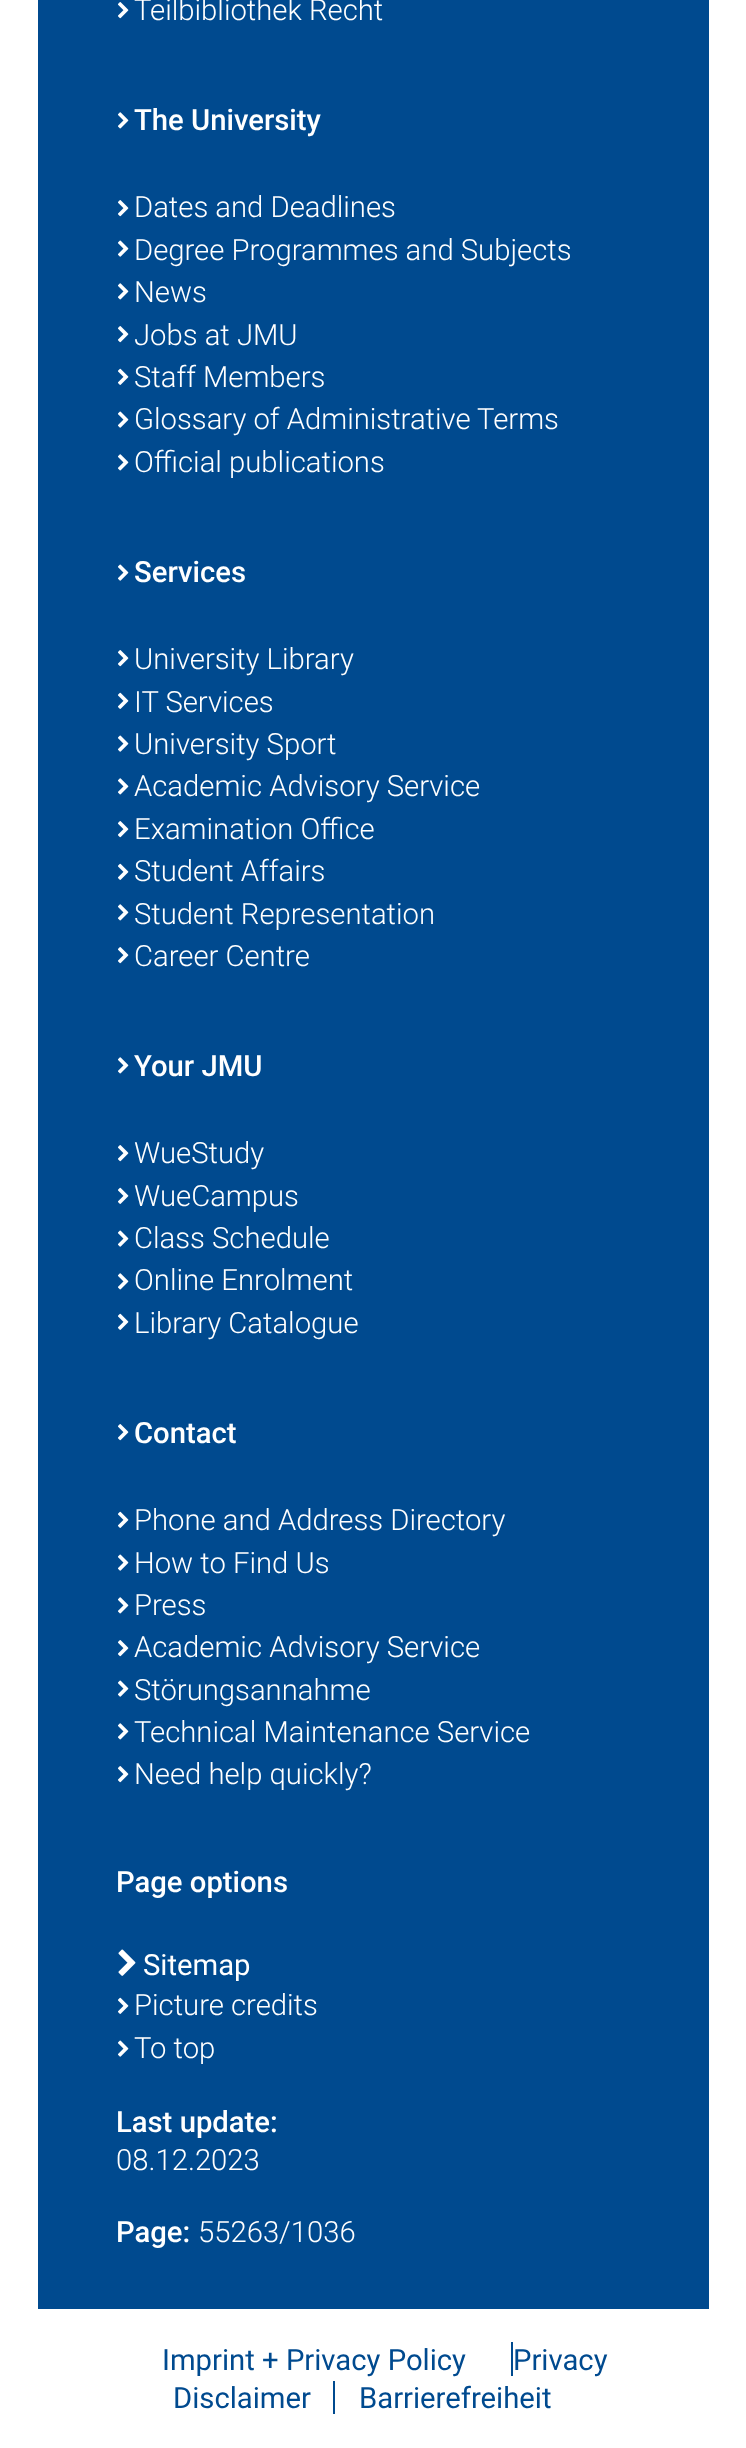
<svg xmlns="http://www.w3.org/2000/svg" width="746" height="2448">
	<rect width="100%" height="100%" fill="#FFFFFF" />
	<rect x="38" y="0" width="671" height="2309" fill="#004A8F" />
	<image x="118" y="2" width="11" height="17" href="assets/img1.png" />
	<text x="134" y="20" font-family="Roboto" font-size="29.25" font-weight="300" fill="#FFFFFF">Teilbibliothek Recht</text>
	<image x="118" y="112" width="11" height="17" href="assets/img2.png" />
	<text x="134" y="130" font-family="Roboto" font-size="29.25" font-weight="500" fill="#FFFFFF">The University</text>
	<image x="118" y="200" width="11" height="17" href="assets/img1.png" />
	<text x="134" y="217" font-family="Roboto" font-size="29.25" font-weight="300" fill="#FFFFFF">Dates and Deadlines</text>
	<image x="118" y="240" width="11" height="17" href="assets/img3.png" />
	<text x="134" y="260" font-family="Roboto" font-size="29.25" font-weight="300" fill="#FFFFFF">Degree Programmes and Subjects</text>
	<image x="118" y="283" width="11" height="17" href="assets/img2.png" />
	<text x="134" y="302" font-family="Roboto" font-size="29.25" font-weight="300" fill="#FFFFFF">News</text>
	<image x="118" y="326" width="11" height="17" href="assets/img1.png" />
	<text x="134" y="345" font-family="Roboto" font-size="29.25" font-weight="300" fill="#FFFFFF">Jobs at JMU</text>
	<image x="118" y="368" width="11" height="17" href="assets/img4.png" />
	<text x="134" y="387" font-family="Roboto" font-size="29.25" font-weight="300" fill="#FFFFFF">Staff Members</text>
	<image x="118" y="411" width="11" height="17" href="assets/img3.png" />
	<text x="134" y="429" font-family="Roboto" font-size="29.25" font-weight="300" fill="#FFFFFF">Glossary of Administrative Terms</text>
	<image x="118" y="454" width="11" height="17" href="assets/img2.png" />
	<text x="134" y="472" font-family="Roboto" font-size="29.25" font-weight="300" fill="#FFFFFF">Official publications</text>
	<image x="118" y="564" width="11" height="17" href="assets/img3.png" />
	<text x="134" y="582" font-family="Roboto" font-size="29.25" font-weight="500" fill="#FFFFFF">Services</text>
	<image x="118" y="650" width="11" height="17" href="assets/img1.png" />
	<text x="134" y="669" font-family="Roboto" font-size="29.25" font-weight="300" fill="#FFFFFF">University Library</text>
	<image x="118" y="692" width="11" height="17" href="assets/img4.png" />
	<text x="134" y="712" font-family="Roboto" font-size="29.25" font-weight="300" fill="#FFFFFF">IT Services</text>
	<image x="118" y="735" width="11" height="17" href="assets/img3.png" />
	<text x="134" y="754" font-family="Roboto" font-size="29.25" font-weight="300" fill="#FFFFFF">University Sport</text>
	<image x="118" y="778" width="11" height="17" href="assets/img2.png" />
	<text x="134" y="796" font-family="Roboto" font-size="29.25" font-weight="300" fill="#FFFFFF">Academic Advisory Service</text>
	<image x="118" y="821" width="11" height="17" href="assets/img1.png" />
	<text x="134" y="839" font-family="Roboto" font-size="29.25" font-weight="300" fill="#FFFFFF">Examination Office</text>
	<image x="118" y="863" width="11" height="17" href="assets/img4.png" />
	<text x="134" y="881" font-family="Roboto" font-size="29.25" font-weight="300" fill="#FFFFFF">Student Affairs</text>
	<image x="118" y="904" width="11" height="17" href="assets/img2.png" />
	<text x="134" y="924" font-family="Roboto" font-size="29.25" font-weight="300" fill="#FFFFFF">Student Representation</text>
	<image x="118" y="947" width="11" height="17" href="assets/img1.png" />
	<text x="134" y="966" font-family="Roboto" font-size="29.25" font-weight="300" fill="#FFFFFF">Career Centre</text>
	<image x="118" y="1057" width="11" height="17" href="assets/img2.png" />
	<text x="134" y="1076" font-family="Roboto" font-size="29.25" font-weight="500" fill="#FFFFFF">Your JMU</text>
	<image x="118" y="1145" width="11" height="17" href="assets/img1.png" />
	<text x="134" y="1163" font-family="Roboto" font-size="29.25" font-weight="300" fill="#FFFFFF">WueStudy</text>
	<image x="118" y="1187" width="11" height="17" href="assets/img4.png" />
	<text x="134" y="1206" font-family="Roboto" font-size="29.25" font-weight="300" fill="#FFFFFF">WueCampus</text>
	<image x="118" y="1230" width="11" height="17" href="assets/img3.png" />
	<text x="134" y="1248" font-family="Roboto" font-size="29.25" font-weight="300" fill="#FFFFFF">Class Schedule</text>
	<image x="118" y="1273" width="11" height="17" href="assets/img2.png" />
	<text x="134" y="1290" font-family="Roboto" font-size="29.25" font-weight="300" fill="#FFFFFF">Online Enrolment</text>
	<image x="118" y="1313" width="11" height="17" href="assets/img4.png" />
	<text x="134" y="1333" font-family="Roboto" font-size="29.25" font-weight="300" fill="#FFFFFF">Library Catalogue</text>
	<image x="118" y="1424" width="11" height="17" href="assets/img1.png" />
	<text x="134" y="1443" font-family="Roboto" font-size="29.25" font-weight="500" fill="#FFFFFF">Contact</text>
	<image x="118" y="1511" width="11" height="17" href="assets/img4.png" />
	<text x="134" y="1530" font-family="Roboto" font-size="29.25" font-weight="300" fill="#FFFFFF">Phone and Address Directory</text>
	<image x="118" y="1554" width="11" height="17" href="assets/img3.png" />
	<text x="134" y="1573" font-family="Roboto" font-size="29.25" font-weight="300" fill="#FFFFFF">How to Find Us</text>
	<image x="118" y="1597" width="11" height="17" href="assets/img2.png" />
	<text x="134" y="1615" font-family="Roboto" font-size="29.25" font-weight="300" fill="#FFFFFF">Press</text>
	<image x="118" y="1640" width="11" height="17" href="assets/img1.png" />
	<text x="134" y="1657" font-family="Roboto" font-size="29.25" font-weight="300" fill="#FFFFFF">Academic Advisory Service</text>
	<image x="118" y="1680" width="11" height="17" href="assets/img3.png" />
	<text x="134" y="1700" font-family="Roboto" font-size="29.25" font-weight="300" fill="#FFFFFF">Störungsannahme</text>
	<image x="118" y="1723" width="11" height="17" href="assets/img2.png" />
	<text x="134" y="1742" font-family="Roboto" font-size="29.25" font-weight="300" fill="#FFFFFF">Technical Maintenance Service</text>
	<image x="118" y="1766" width="11" height="17" href="assets/img1.png" />
	<text x="134" y="1784" font-family="Roboto" font-size="29.25" font-weight="300" fill="#FFFFFF">Need help quickly?</text>
	<text x="116" y="1892" font-family="Roboto" font-size="29.25" font-weight="500" fill="#FFFFFF">Page options</text>
	<image x="118" y="1949" width="18" height="27" href="assets/img5.png" />
	<text x="143" y="1975" font-family="Roboto" font-size="29.25" fill="#FFFFFF">Sitemap</text>
	<image x="118" y="1997" width="11" height="17" href="assets/img4.png" />
	<text x="134" y="2015" font-family="Roboto" font-size="29.25" font-weight="300" fill="#FFFFFF">Picture credits</text>
	<image x="118" y="2040" width="11" height="17" href="assets/img3.png" />
	<text x="134" y="2058" font-family="Roboto" font-size="29.25" font-weight="300" fill="#FFFFFF">To top</text>
	<text x="116" y="2132" font-family="Roboto" font-size="29.25" font-weight="500" fill="#FFFFFF">Last update:</text>
	<text x="116" y="2170" font-family="Roboto" font-size="29.25" font-weight="300" fill="#FFFFFF">08.12.2023</text>
	<text x="116" y="2242" font-family="Roboto" font-size="29.25" font-weight="500" fill="#FFFFFF">Page:</text>
	<text x="198" y="2242" font-family="Roboto" font-size="29.25" font-weight="300" fill="#FFFFFF">55263/1036</text>
	<g font-family="Roboto" font-size="29.25" fill="#004A8F">
		<text x="162" y="2370">Imprint + Privacy Policy</text>
		<text x="513" y="2370">Privacy</text>
	</g>
	<rect x="511" y="2342" width="2" height="34" fill="#004A8F" />
	<g font-family="Roboto" font-size="29.25" fill="#004A8F">
		<text x="173" y="2408">Disclaimer</text>
		<text x="359" y="2408">Barrierefreiheit</text>
	</g>
	<rect x="333" y="2381" width="2" height="33" fill="#004A8F" />
</svg>
